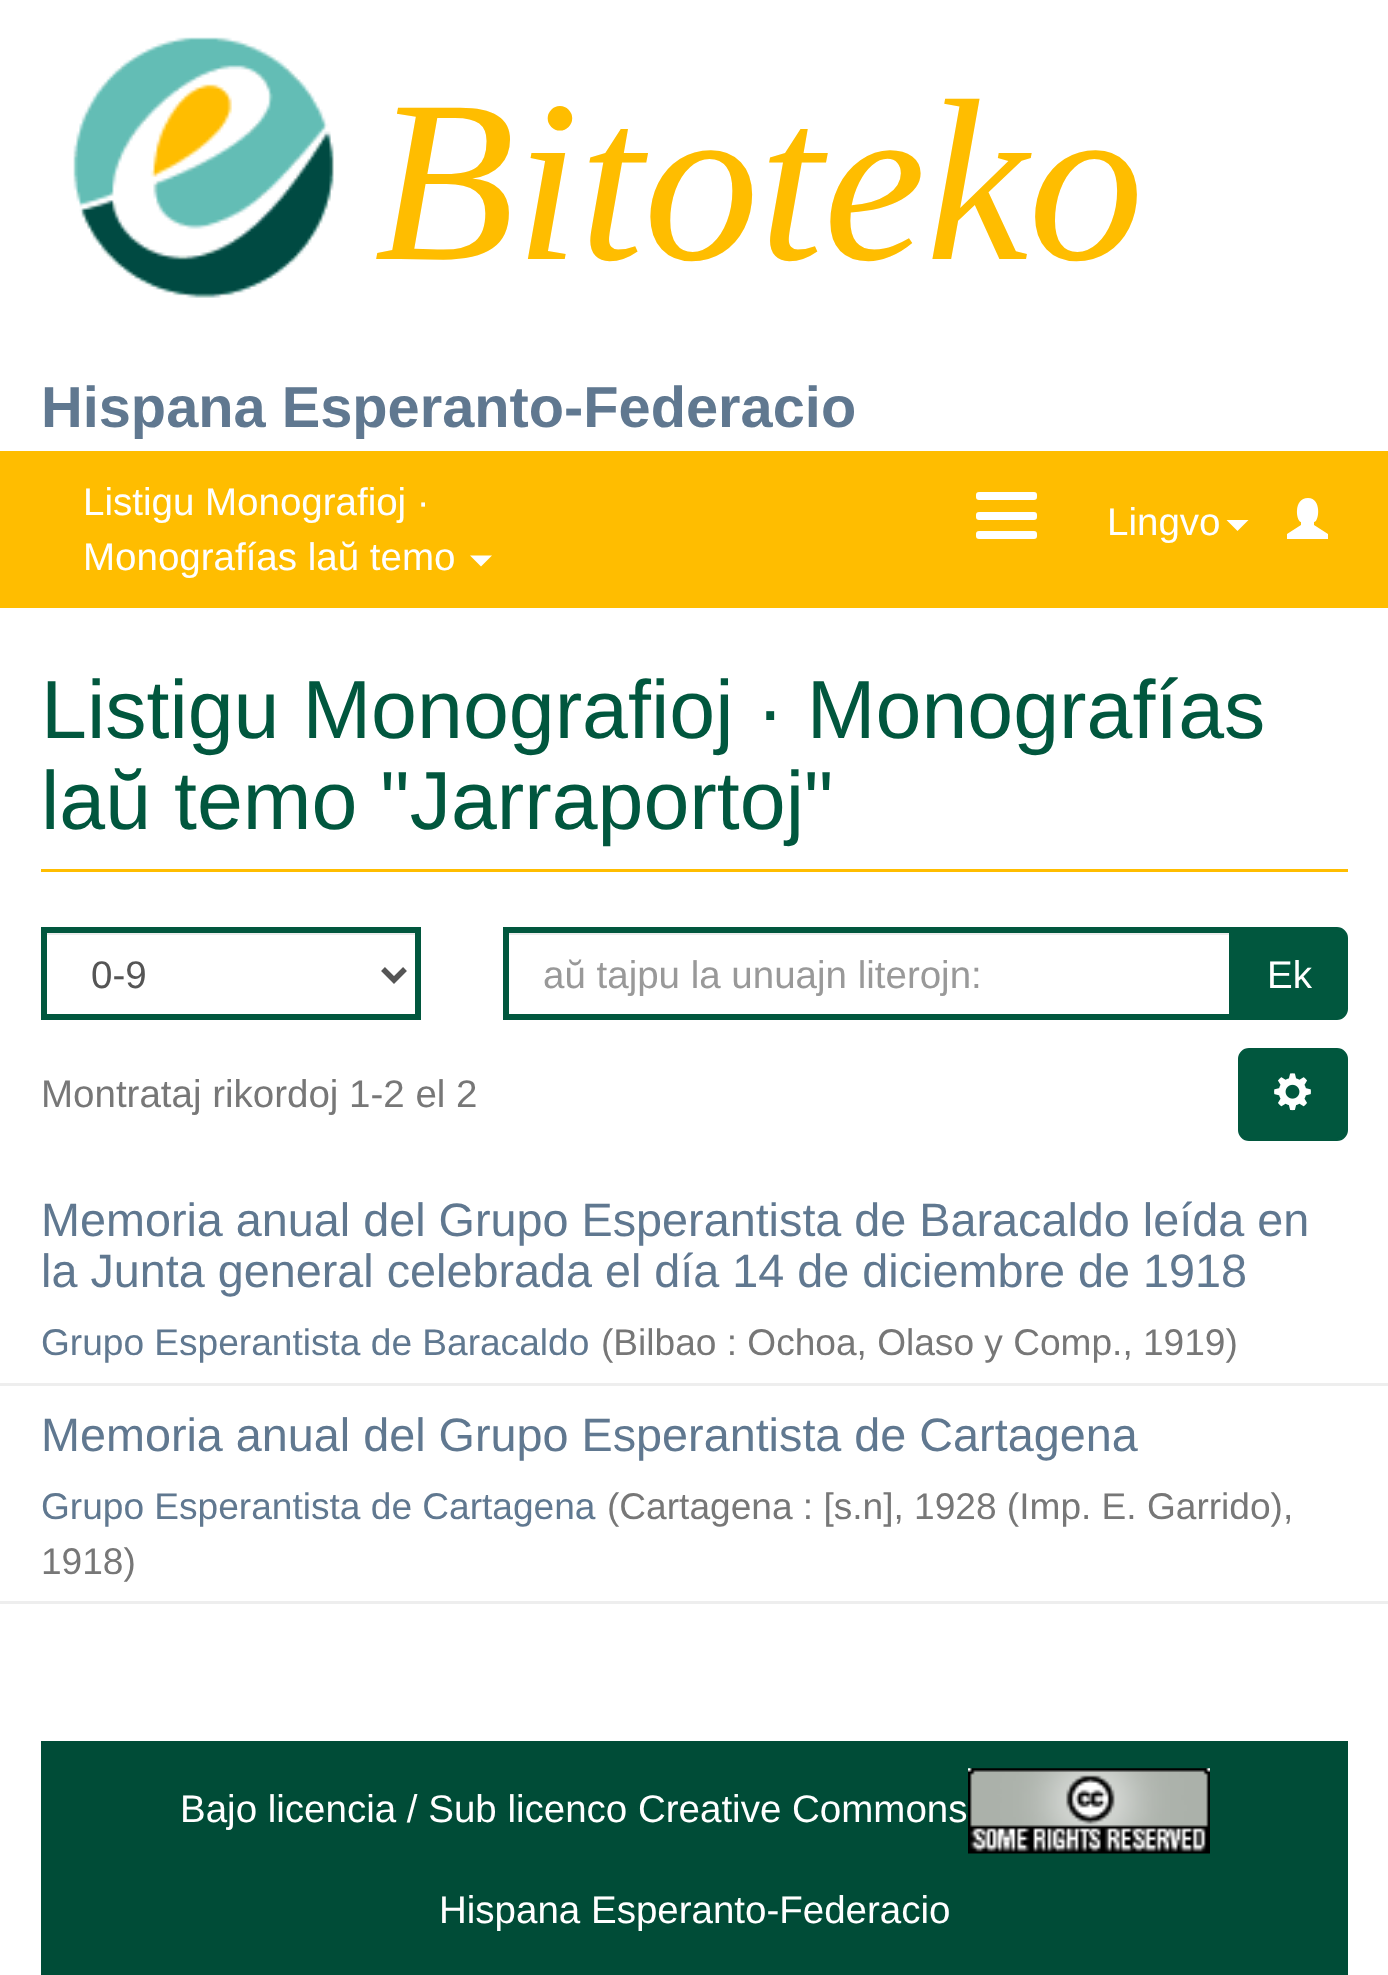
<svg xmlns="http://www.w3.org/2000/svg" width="1388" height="1975">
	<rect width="100%" height="100%" fill="#FFFFFF" />
	<image x="73" y="37" width="261" height="261" href="assets/img1.png" />
	<text x="374" y="259" font-family="Liberation Serif" font-size="231" font-style="italic" fill="#FFBD00">Bitoteko</text>
	<text x="41" y="427" font-family="Liberation Sans" font-size="57.75" font-weight="700" fill="#607890">Hispana Esperanto-Federacio</text>
	<rect x="0" y="451" width="1388" height="157" fill="#FFBD00" />
	<g font-family="Liberation Sans" font-size="38.5" fill="#FFFFFF">
		<text x="83" y="515">Listigu Monografioj ·</text>
		<text x="83" y="570">Monografías laŭ temo</text>
	</g>
	<path d="M470 555.5H492L481 566.5Z" fill="#FFFFFF" />
	<rect x="976" y="492" width="61" height="8" rx="3" fill="#FFFFFF" />
	<rect x="976" y="512" width="61" height="8" rx="3" fill="#FFFFFF" />
	<rect x="976" y="531" width="61" height="8" rx="3" fill="#FFFFFF" />
	<text x="1107" y="535" font-family="Liberation Sans" font-size="38.5" fill="#FFFFFF">Lingvo</text>
	<path d="M1226.5 520H1248.5L1237.5 531Z" fill="#FFFFFF" />
	<path d="M1287 539V534L1301 525V522C1296 522 1293 498 1308 498C1322 498 1319 522 1314 522V525L1328 534V539Z" fill="#FFFFFF" />
	<rect x="41" y="869" width="1307" height="3" fill="#FFBD00" />
	<g font-family="Liberation Sans" font-size="82.5" fill="#01573E">
		<text x="41" y="738">Listigu Monografioj · Monografías</text>
		<text x="41" y="829">laŭ temo "Jarraportoj"</text>
	</g>
	<rect x="47" y="933" width="368" height="2" fill="#ECECEC" />
	<rect x="44" y="930" width="374" height="87" fill="none" stroke="#01573E" stroke-width="6" />
	<path d="M383 969L394 980L405 969" fill="none" stroke="#555555" stroke-width="5.5" />
	<text x="91" y="988" font-family="Liberation Sans" font-size="38.5" fill="#555555">0-9</text>
	<rect x="509" y="933" width="720" height="2" fill="#ECECEC" />
	<path d="M1233.5 928.5H1337C1342 928.5 1346.5 933 1346.5 938V1009C1346.5 1014 1342 1018.5 1337 1018.5H1233.5Z" fill="#01573E" stroke="#01573E" stroke-width="3" />
	<rect x="506" y="930" width="726" height="87" fill="none" stroke="#01573E" stroke-width="6" />
	<text x="543" y="988" font-family="Liberation Sans" font-size="38.5" fill="#999999">aŭ tajpu la unuajn literojn:</text>
	<text x="1267" y="988" font-family="Liberation Sans" font-size="38.5" fill="#FFFFFF">Ek</text>
	<text x="41" y="1107" font-family="Liberation Sans" font-size="38.5" fill="#777777">Montrataj rikordoj 1-2 el 2</text>
	<rect x="1239.5" y="1049.5" width="107" height="90" rx="9.5" fill="#01573E" stroke="#01573E" stroke-width="3" />
	<image x="1274" y="1073" width="37" height="38" href="assets/img2.png" />
	<rect x="0" y="1383" width="1388" height="3" fill="#EEEEEE" />
	<g font-family="Liberation Sans" font-size="46.75" fill="#607890">
		<text x="41" y="1236">Memoria anual del Grupo Esperantista de Baracaldo leída en</text>
		<text x="41" y="1287">la Junta general celebrada el día 14 de diciembre de 1918</text>
	</g>
	<text x="41" y="1355" font-family="Liberation Sans" font-size="37.1" fill="#607890">Grupo Esperantista de Baracaldo</text>
	<text x="601" y="1355" font-family="Liberation Sans" font-size="37.1" fill="#777777">(Bilbao : Ochoa, Olaso y Comp., 1919)</text>
	<rect x="0" y="1601" width="1388" height="3" fill="#EEEEEE" />
	<text x="41" y="1451" font-family="Liberation Sans" font-size="46.75" fill="#607890">Memoria anual del Grupo Esperantista de Cartagena</text>
	<text x="41" y="1519" font-family="Liberation Sans" font-size="37.1" fill="#607890">Grupo Esperantista de Cartagena</text>
	<g font-family="Liberation Sans" font-size="37.1" fill="#777777">
		<text x="607" y="1519">(Cartagena : [s.n], 1928 (Imp. E. Garrido),</text>
		<text x="41" y="1574">1918)</text>
	</g>
	<rect x="41" y="1741" width="1307" height="234" fill="#004C37" />
	<text x="180" y="1822" font-family="Liberation Sans" font-size="38.5" fill="#FFFFFF">Bajo licencia / Sub licenco Creative Commons</text>
	<image x="968" y="1768" width="242" height="86" href="assets/img3.png" />
	<text x="439" y="1923" font-family="Liberation Sans" font-size="38.5" fill="#FFFFFF">Hispana Esperanto-Federacio</text>
</svg>
